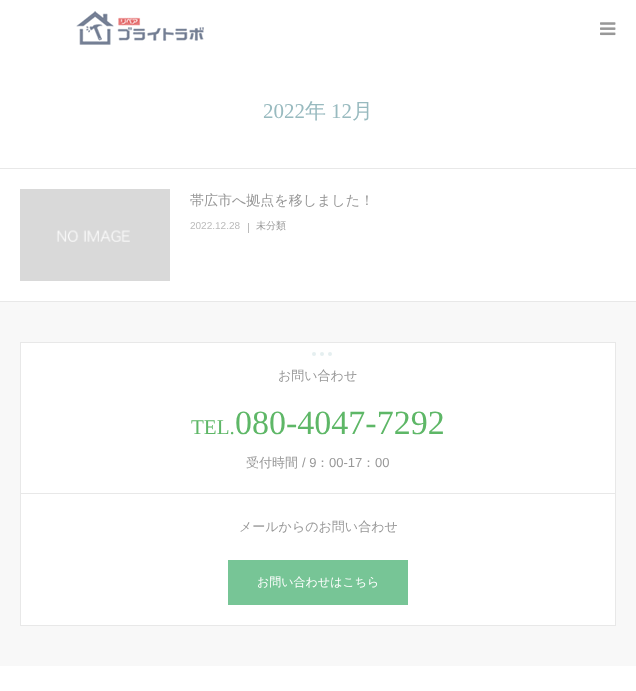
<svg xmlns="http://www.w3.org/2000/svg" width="636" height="691">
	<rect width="100%" height="100%" fill="#FFFFFF" />
	<image x="76" y="11" width="128" height="34" href="assets/img1.png" />
	<image x="600" y="22" width="16" height="14" href="assets/img2.png" />
	<text x="263" y="118" font-family="Liberation Serif" font-size="21" fill="#98BABF">2022</text>
	<text x="305" y="118" font-family="WenQuanYi Zen Hei" font-size="21" font-weight="500" fill="#98BABF">年</text>
	<text x="331" y="118" font-family="Liberation Serif" font-size="21" fill="#98BABF">12</text>
	<text x="352" y="118" font-family="WenQuanYi Zen Hei" font-size="21" font-weight="500" fill="#98BABF">月</text>
	<rect x="0" y="168" width="636" height="1" fill="#E8E8E8" />
	<rect x="0" y="301" width="636" height="1" fill="#E8E8E8" />
	<image x="20" y="189" width="150" height="92" href="assets/img3.png" />
	<text x="190" y="205" font-family="WenQuanYi Zen Hei" font-size="14" font-weight="500" fill="#989898">帯広市へ拠点を移しました！</text>
	<text x="190" y="229" font-family="Liberation Sans" font-size="10" fill="#BBBBBB">2022.12.28</text>
	<rect x="248" y="223" width="1" height="10" fill="#BBBBBB" />
	<text x="256" y="229" font-family="WenQuanYi Zen Hei" font-size="10" font-weight="500" fill="#989898">未分類</text>
	<rect x="0" y="302" width="636" height="364" fill="#F8F8F8" />
	<rect x="20.5" y="342.5" width="595" height="151" fill="#FFFFFF" stroke="#E8E8E8" />
	<text x="278" y="380" font-family="WenQuanYi Zen Hei" font-size="13" font-weight="500" fill="#989898">お問い合わせ</text>
	<text x="191" y="434" font-family="Liberation Serif" font-size="21" fill="#5EB767">TEL.</text>
	<text x="235" y="434" font-family="Liberation Serif" font-size="34" fill="#5EB767">080-4047-7292</text>
	<text x="246" y="467" font-family="WenQuanYi Zen Hei" font-size="13" font-weight="500" fill="#989898">受付時間</text>
	<text x="302" y="467" font-family="Liberation Sans" font-size="13" fill="#989898">/ 9</text>
	<text x="316" y="467" font-family="WenQuanYi Zen Hei" font-size="13" font-weight="500" fill="#989898">：</text>
	<text x="329" y="467" font-family="Liberation Sans" font-size="13" fill="#989898">00-17</text>
	<text x="362" y="467" font-family="WenQuanYi Zen Hei" font-size="13" font-weight="500" fill="#989898">：</text>
	<text x="375" y="467" font-family="Liberation Sans" font-size="13" fill="#989898">00</text>
	<rect x="21" y="494" width="594" height="131" fill="#FFFFFF" />
	<rect x="615" y="494" width="1" height="132" fill="#E8E8E8" />
	<rect x="20" y="625" width="596" height="1" fill="#E8E8E8" />
	<rect x="20" y="494" width="1" height="132" fill="#E8E8E8" />
	<text x="239" y="531" font-family="WenQuanYi Zen Hei" font-size="13" font-weight="500" fill="#989898">メールからのお問い合わせ</text>
	<rect x="228" y="560" width="180" height="45" fill="#77C596" />
	<text x="257" y="586" font-family="WenQuanYi Zen Hei" font-size="12" font-weight="500" fill="#FFFFFF">お問い合わせはこちら</text>
	<circle cx="314" cy="354" r="2" fill="#E5EFF0" />
	<circle cx="322" cy="354" r="2" fill="#E5EFF0" />
	<circle cx="330" cy="354" r="2" fill="#E5EFF0" />
</svg>
